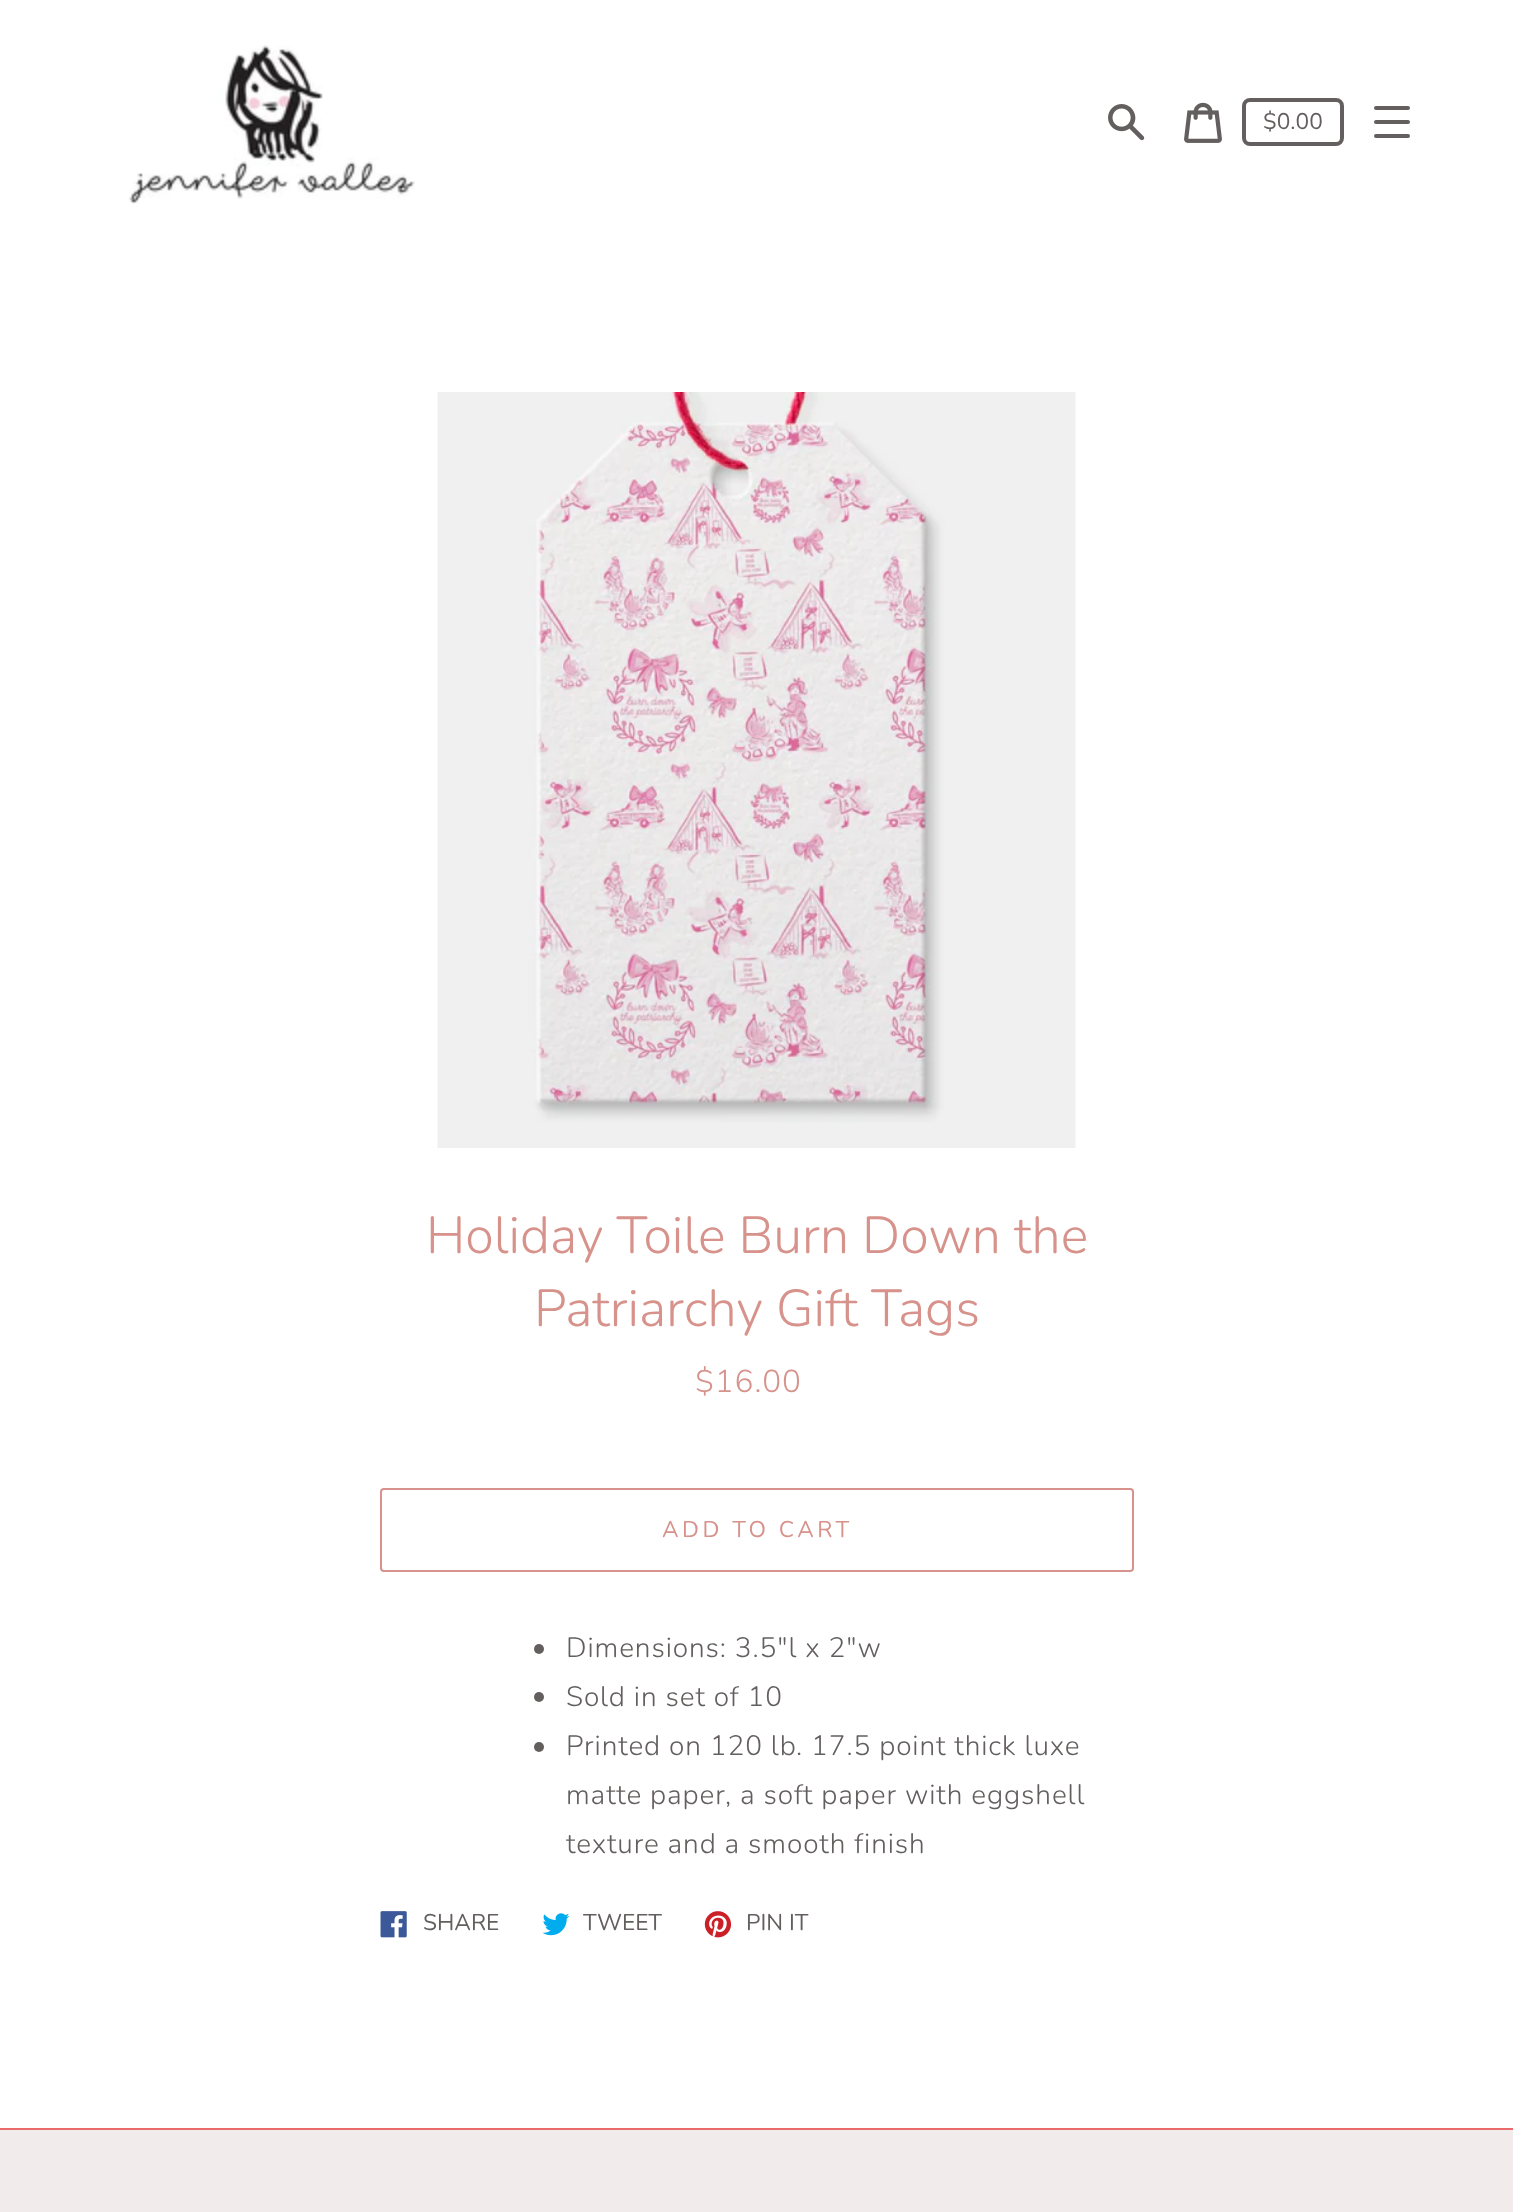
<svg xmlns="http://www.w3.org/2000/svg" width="1513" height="2212">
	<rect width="100%" height="100%" fill="#FFFFFF" />
	<image x="129" y="45" width="286" height="159" href="assets/img1.png" />
	<image x="1108" y="104" width="37" height="37" href="assets/img2.png" />
	<image x="1184" y="102" width="38" height="41" href="assets/img3.png" />
	<rect x="1244" y="100" width="98" height="44" rx="6" fill="none" stroke="#645F5F" stroke-width="4" />
	<text x="1263" y="129" font-family="Nunito" font-size="22.75" fill="#645F5F">$0.00</text>
	<rect x="1374" y="120" width="36" height="4" rx="2" fill="#645F5F" />
	<rect x="1374" y="106" width="36" height="4" rx="2" fill="#645F5F" />
	<rect x="1374" y="134" width="36" height="4" rx="2" fill="#645F5F" />
	<image x="437" y="392" width="639" height="756" href="assets/img4.png" />
	<g font-family="Nunito" font-size="52" font-weight="300" fill="#D6928B">
		<text x="426" y="1253">Holiday Toile Burn Down the</text>
		<text x="534" y="1326">Patriarchy Gift Tags</text>
	</g>
	<text x="695" y="1392" font-family="Nunito" font-size="31.5" font-weight="300" letter-spacing="0.9" fill="#D6928B">$16.00</text>
	<rect x="381" y="1489" width="752" height="82" rx="3" fill="none" stroke="#D6928B" stroke-width="2" />
	<text x="662" y="1537" font-family="Nunito" font-size="22.75" letter-spacing="3.5" fill="#D6928B">ADD TO CART</text>
	<circle cx="539" cy="1649" r="5" fill="#645F5F" />
	<text x="566" y="1657" font-family="Nunito" font-size="28" font-weight="300" letter-spacing="0.9" fill="#645F5F">Dimensions: 3.5"l x 2"w</text>
	<circle cx="539" cy="1697" r="5" fill="#645F5F" />
	<text x="566" y="1706" font-family="Nunito" font-size="28" font-weight="300" letter-spacing="0.9" fill="#645F5F">Sold in set of 10</text>
	<circle cx="539" cy="1747" r="5" fill="#645F5F" />
	<g font-family="Nunito" font-size="28" font-weight="300" letter-spacing="0.9" fill="#645F5F">
		<text x="566" y="1755">Printed on 120 lb. 17.5 point thick luxe</text>
		<text x="566" y="1804">matte paper, a soft paper with eggshell</text>
		<text x="566" y="1853">texture and a smooth finish</text>
	</g>
	<image x="380" y="1911" width="27" height="27" href="assets/img5.png" />
	<text x="423" y="1930" font-family="Nunito" font-size="22.75" fill="#645F5F">SHARE</text>
	<image x="542" y="1913" width="28" height="23" href="assets/img6.png" />
	<text x="583" y="1930" font-family="Nunito" font-size="22.75" fill="#645F5F">TWEET</text>
	<image x="704" y="1911" width="28" height="27" href="assets/img7.png" />
	<text x="746" y="1930" font-family="Nunito" font-size="22.75" fill="#645F5F">PIN IT</text>
	<rect x="0" y="2130" width="1513" height="82" fill="#F2EBEB" />
	<rect x="0" y="2128" width="1513" height="2" fill="#EA6B6B" />
</svg>
